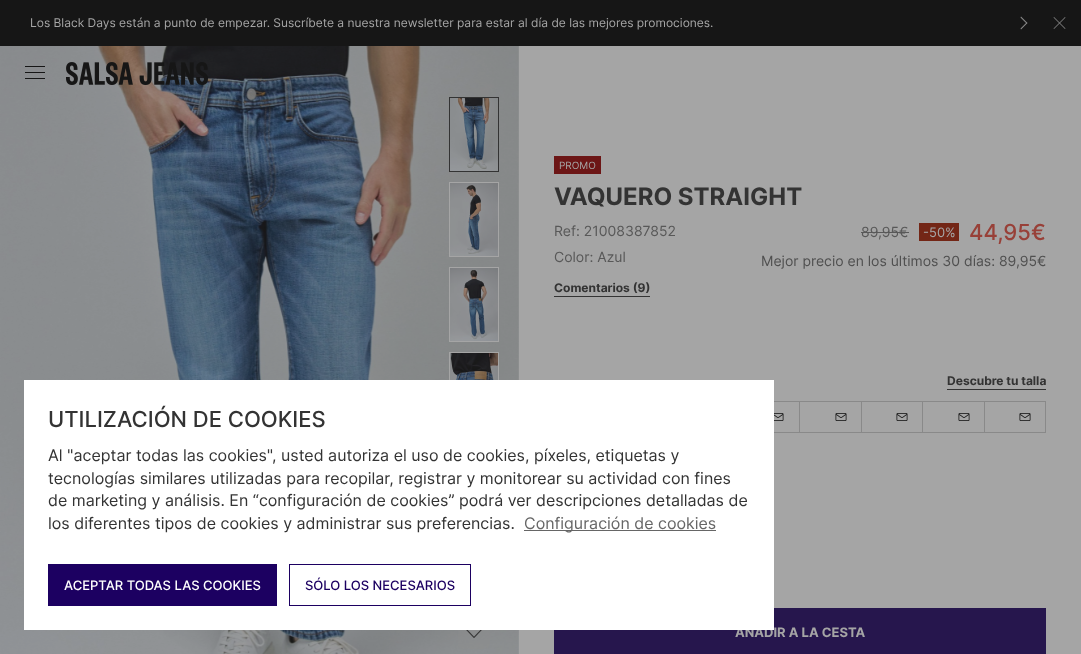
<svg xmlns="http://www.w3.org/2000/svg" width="1081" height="654">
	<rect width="100%" height="100%" fill="#A5A5A5" />
	<rect x="0" y="0" width="1081" height="46" fill="#161616" />
	<text x="30" y="27" font-family="Inter" font-size="12" fill="#A5A5A5">Los Black Days están a punto de empezar. Suscríbete a nuestra newsletter para estar al día de las mejores promociones.</text>
	<path d="M1021 16.5L1027.5 23L1026.5 23.5L1020.5 17.5Z" fill="#898989" />
	<path d="M1026.5 22.5L1027.5 23L1021 29.5L1020.5 28.5ZM1065 17L1065.5 17.5L1054 29L1053.5 28.5Z" fill="#898989" />
	<path d="M1053.5 17.5L1054 17L1065.5 28.5L1065 29Z" fill="#898989" />
	<image x="0" y="46" width="519" height="608" href="assets/img2.png" />
	<rect x="25" y="66" width="20" height="1" fill="#161616" />
	<rect x="25" y="72" width="20" height="1" fill="#161616" />
	<rect x="25" y="78" width="20" height="1" fill="#161616" />
	<image x="66" y="62" width="142" height="23" href="assets/img1.png" />
	<image x="450" y="353" width="48" height="27" href="assets/img6.png" />
	<rect x="449.5" y="352.5" width="49" height="74" fill="none" stroke="#A5A5A5" />
	<rect x="458" y="617" width="32" height="32" rx="5" fill="#909090" fill-opacity="0.3" />
	<rect x="738.5" y="401.5" width="61" height="31" fill="none" stroke="#898989" />
	<rect x="554" y="608" width="492" height="46" fill="#26164D" />
	<text x="735" y="637" font-family="Inter" font-size="13" font-weight="700" fill="#A5A5A5">AÑADIR A LA CESTA</text>
	<rect x="24" y="380" width="750" height="250" fill="#FFFFFF" />
	<text x="48" y="427" font-family="Inter" font-size="22" font-weight="500" fill="#333333">UTILIZACIÓN DE COOKIES</text>
	<g font-family="Inter" font-size="16" fill="#333333">
		<text x="48" y="461">Al "aceptar todas las cookies", usted autoriza el uso de cookies, píxeles, etiquetas y</text>
		<text x="48" y="484">tecnologías similares utilizadas para recopilar, registrar y monitorear su actividad con fines</text>
		<text x="48" y="506">de marketing y análisis. En “configuración de cookies” podrá ver descripciones detalladas de</text>
		<text x="48" y="529">los diferentes tipos de cookies y administrar sus preferencias.</text>
	</g>
	<rect x="524" y="530" width="192" height="1" fill="#666666" />
	<text x="524" y="529" font-family="Inter" font-size="16" fill="#666666">Configuración de cookies</text>
	<rect x="48" y="564" width="229" height="42" fill="#1C0061" />
	<text x="64" y="590" font-family="Inter" font-size="13" font-weight="500" fill="#FFFFFF">ACEPTAR TODAS LAS COOKIES</text>
	<rect x="289.5" y="564.5" width="181" height="41" fill="none" stroke="#1C0061" />
	<text x="305" y="590" font-family="Inter" font-size="13" font-weight="500" fill="#1C0061">SÓLO LOS NECESARIOS</text>
	<image x="450" y="98" width="48" height="73" href="assets/img3.png" />
	<rect x="449.5" y="97.5" width="49" height="74" fill="none" stroke="#333333" />
	<image x="450" y="183" width="48" height="73" href="assets/img4.png" />
	<rect x="449.5" y="182.5" width="49" height="74" fill="none" stroke="#A5A5A5" />
	<image x="450" y="268" width="48" height="73" href="assets/img5.png" />
	<rect x="449.5" y="267.5" width="49" height="74" fill="none" stroke="#A5A5A5" />
	<image x="466" y="630" width="16" height="8" href="assets/img7.png" />
	<rect x="554" y="156" width="47" height="18" fill="#6C1616" />
	<text x="559" y="169" font-family="Inter" font-size="10" fill="#A5A5A5">PROMO</text>
	<text x="554" y="205" font-family="Inter" font-size="24" font-weight="700" fill="#333333">VAQUERO STRAIGHT</text>
	<g font-family="Inter" font-size="14" fill="#585858">
		<text x="554" y="236">Ref: 21008387852</text>
		<text x="554" y="262">Color: Azul</text>
	</g>
	<text x="554" y="292" font-family="Inter" font-size="12" font-weight="700" fill="#333333">Comentarios (9)</text>
	<rect x="554" y="296" width="96" height="1" fill="#333333" />
	<text x="861" y="237" font-family="Inter" font-size="14" fill="#585858">89,95€</text>
	<rect x="861" y="232" width="48" height="1" fill="#585858" />
	<rect x="919" y="223" width="40" height="18" fill="#732616" />
	<text x="923" y="237" font-family="Inter" font-size="13" fill="#A5A5A5">-50%</text>
	<text x="969" y="240" font-family="Inter" font-size="22" font-weight="500" fill="#984038">44,95€</text>
	<text x="761" y="266" font-family="Inter" font-size="14" fill="#505050">Mejor precio en los últimos 30 días: 89,95€</text>
	<text x="947" y="385" font-family="Inter" font-size="12" font-weight="700" fill="#333333">Descubre tu talla</text>
	<rect x="947" y="389" width="99" height="1" fill="#333333" />
	<image x="774" y="413" width="10" height="8" href="assets/img8.png" />
	<rect x="799.5" y="401.5" width="62" height="31" fill="none" stroke="#898989" />
	<image x="835" y="413" width="12" height="8" href="assets/img9.png" />
	<rect x="861.5" y="401.5" width="61" height="31" fill="none" stroke="#898989" />
	<image x="896" y="413" width="12" height="8" href="assets/img9.png" />
	<rect x="922.5" y="401.5" width="62" height="31" fill="none" stroke="#898989" />
	<image x="958" y="413" width="12" height="8" href="assets/img9.png" />
	<rect x="984.5" y="401.5" width="61" height="31" fill="none" stroke="#898989" />
	<image x="1019" y="413" width="12" height="8" href="assets/img9.png" />
</svg>
